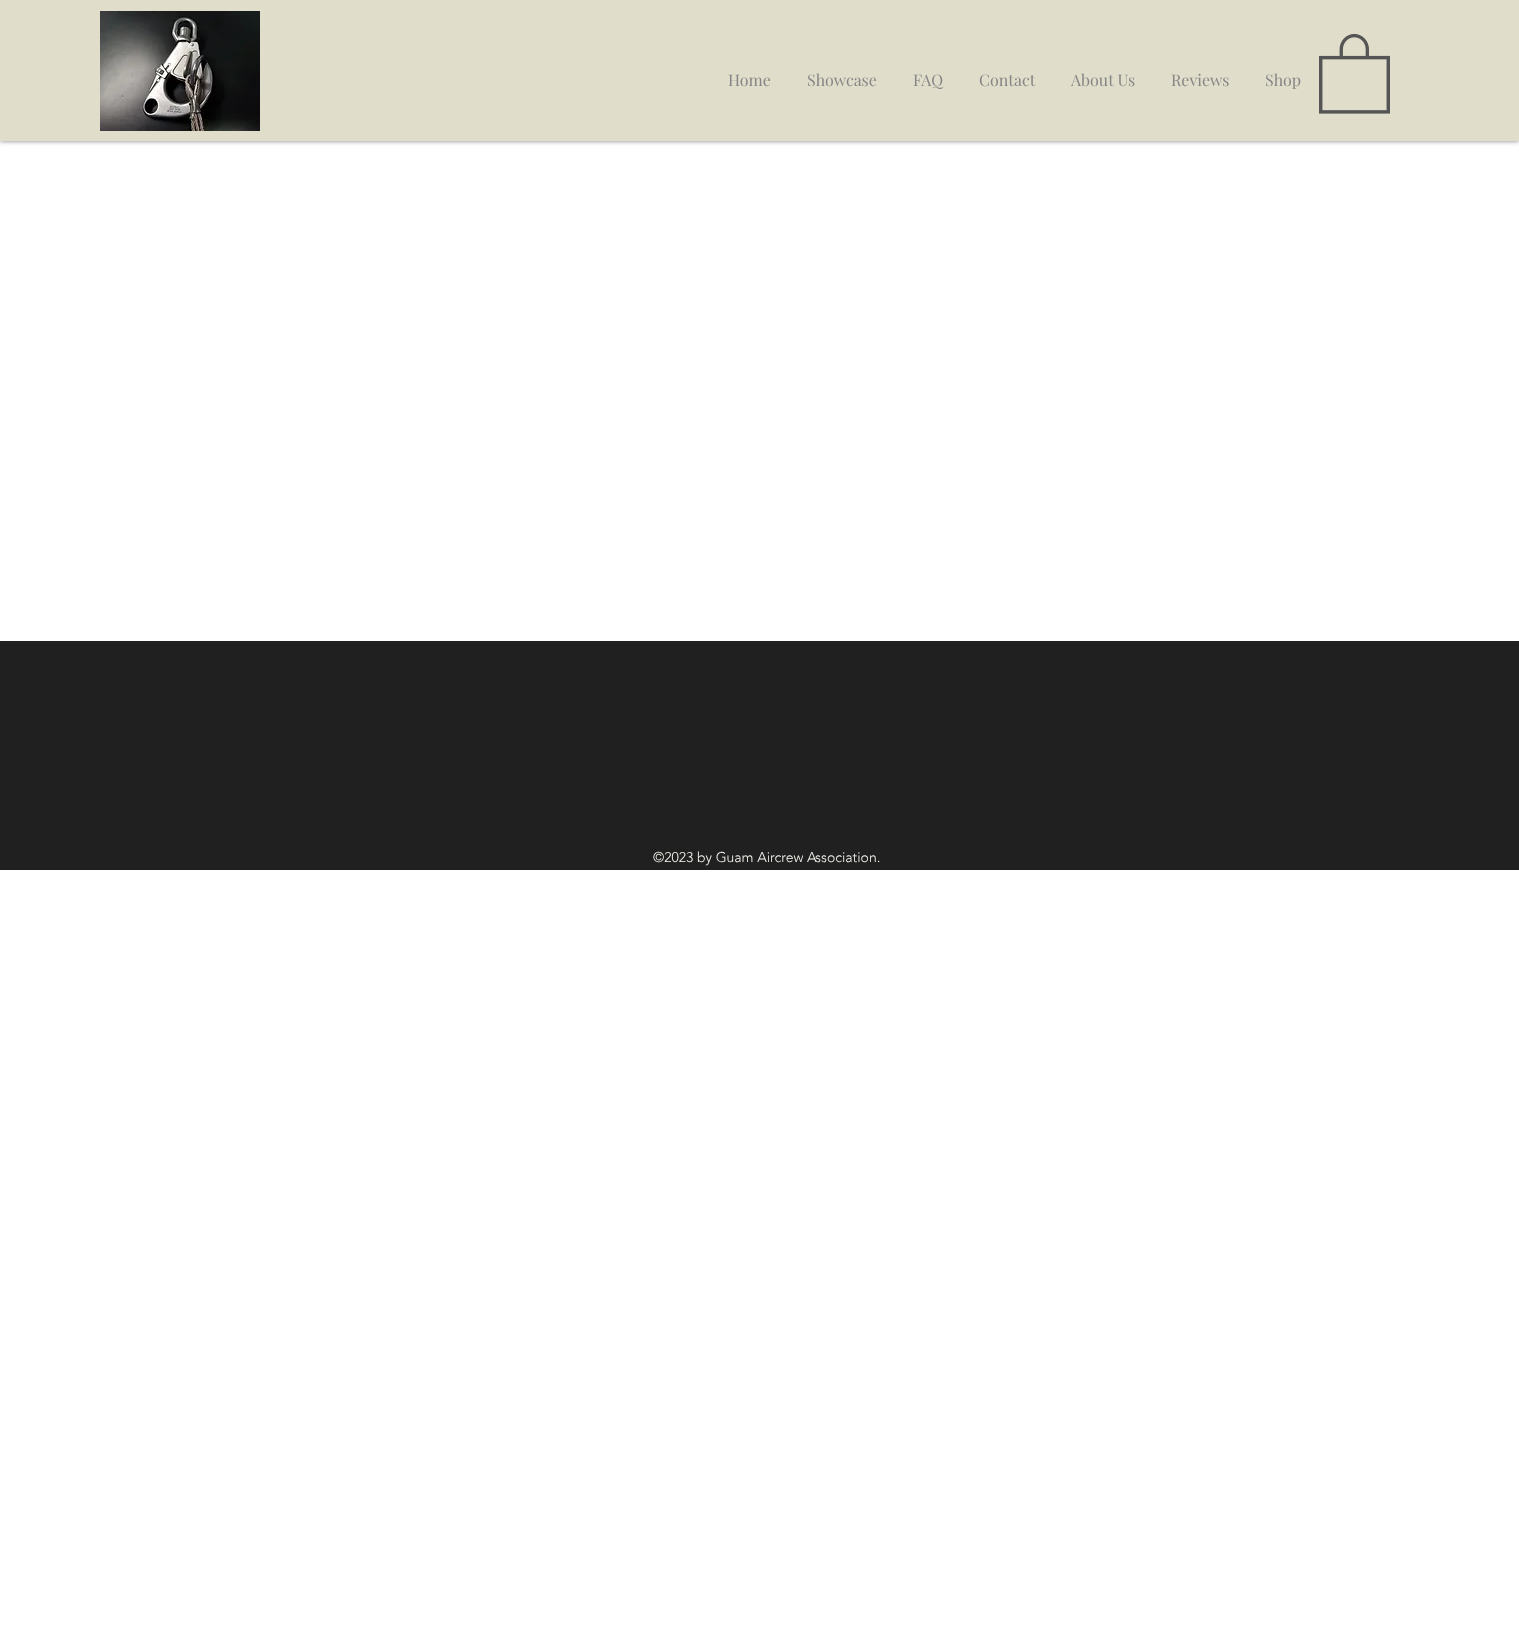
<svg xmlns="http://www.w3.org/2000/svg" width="1519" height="1630">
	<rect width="100%" height="100%" fill="#FFFFFF" />
	<rect x="0" y="0" width="1519" height="141" fill="#000000" fill-opacity="0.5" filter="blur(2.5px)" />
	<rect x="0" y="0" width="1519" height="141" fill="#E0DECA" />
	<image x="100" y="11" width="160" height="120" href="assets/img1.png" />
	<g font-family="Playfair Display" font-size="16" fill="#858585">
		<text x="728" y="86">Home</text>
		<text x="807" y="86">Showcase</text>
		<text x="913" y="86">FAQ</text>
		<text x="979" y="86">Contact</text>
		<text x="1071" y="86">About Us</text>
		<text x="1171" y="86">Reviews</text>
		<text x="1265" y="86">Shop</text>
	</g>
	<image x="1319" y="33" width="71" height="81" href="assets/img2.png" />
	<rect x="290" y="254" width="608" height="1" fill="#FDFDFC" />
	<rect x="290" y="427" width="608" height="1" fill="#FDFDFC" />
	<rect x="950" y="254" width="280" height="1" fill="#FDFDFC" />
	<rect x="950" y="427" width="280" height="1" fill="#FDFDFC" />
	<rect x="0" y="641" width="1519" height="229" fill="#202020" />
	<text x="653" y="862" font-family="'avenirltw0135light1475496'" font-size="14" font-weight="300" fill="#F7F5EE">©2023 by Guam Aircrew Association.</text>
</svg>
